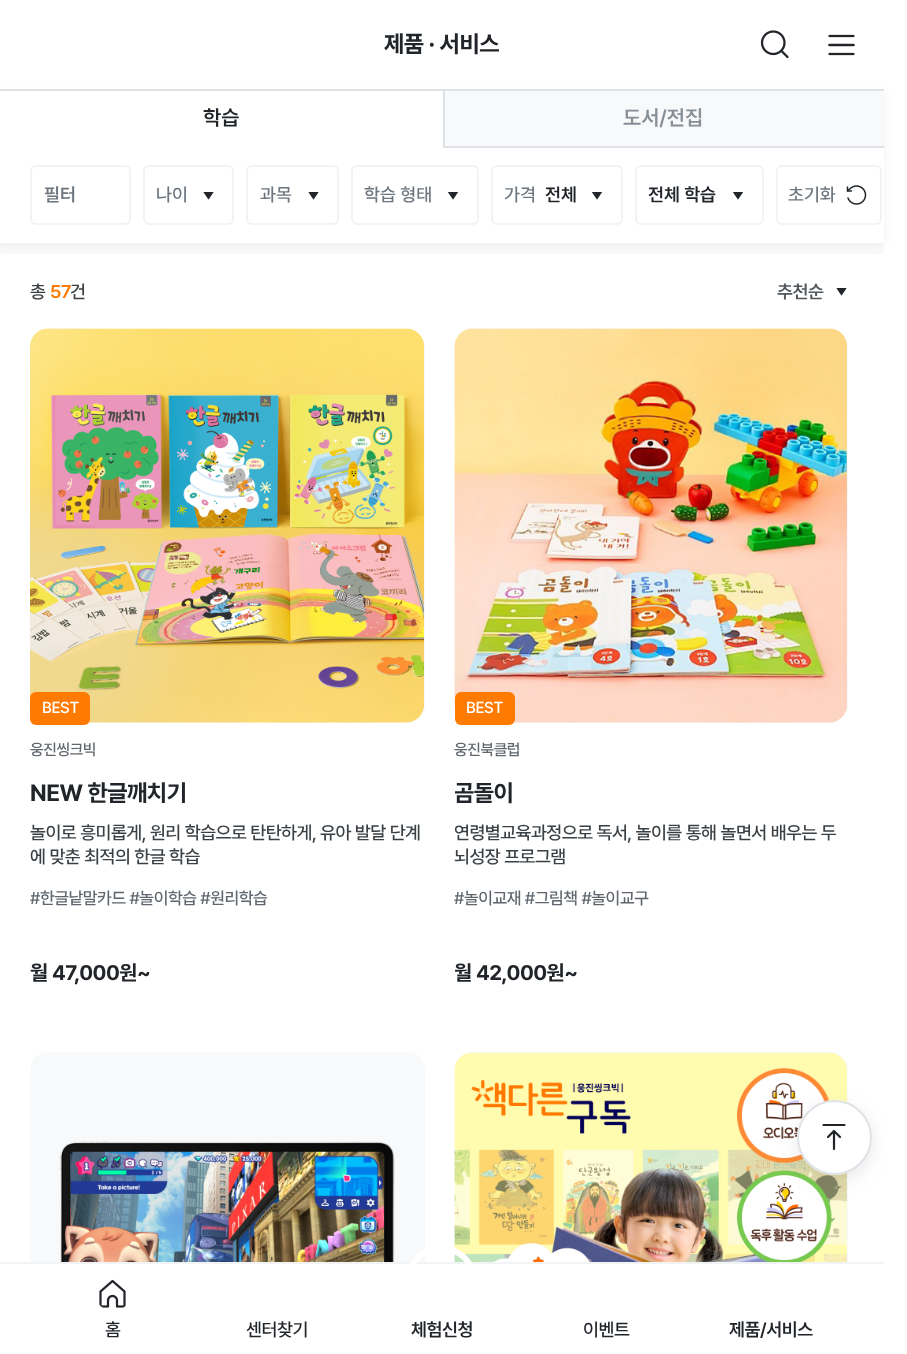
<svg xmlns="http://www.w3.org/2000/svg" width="907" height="1354">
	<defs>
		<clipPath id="clip1"><rect x="455" y="779" width="393" height="31" /></clipPath>
		<clipPath id="clip2"><rect x="455" y="822" width="393" height="47" /></clipPath>
		<clipPath id="clip3"><rect x="455" y="959" width="393" height="27" /></clipPath>
	</defs>
	<rect width="100%" height="100%" fill="#FFFFFF" />
	<rect x="0" y="245" width="884" height="9" fill="#F8F9FA" />
	<rect x="0" y="90" width="884" height="155" fill="#000000" fill-opacity="0.05" filter="blur(4.5px)" />
	<rect x="0" y="86" width="884" height="3" fill="#FFFFFF" />
	<rect x="0" y="91" width="884" height="152" fill="#FFFFFF" />
	<rect x="443" y="146" width="441" height="2" fill="#DEE2E6" />
	<rect x="443" y="90" width="2" height="57" fill="#DEE2E6" />
	<rect x="0" y="89" width="884" height="2" fill="#DEE2E6" />
	<text x="384" y="52" font-family="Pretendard" font-size="23.5" font-weight="700" letter-spacing="-0.5" fill="#212529">제품 · 서비스</text>
	<image x="760" y="30" width="29" height="29" href="assets/img1.png" />
	<image x="828" y="34" width="27" height="22" href="assets/img2.png" />
	<rect x="0" y="243" width="884" height="2" fill="#F1F3F5" />
	<text x="203" y="125" font-family="Pretendard" font-size="21" font-weight="600" fill="#212529">학습</text>
	<rect x="445" y="91" width="439" height="55" fill="#F8F9FA" />
	<text x="623" y="125" font-family="Pretendard" font-size="21" font-weight="600" fill="#868E96">도서/전집</text>
	<rect x="31" y="166" width="99" height="58" rx="5" fill="none" stroke="#F1F3F5" stroke-width="2" />
	<text x="44" y="201" font-family="Pretendard" font-size="18.4" font-weight="600" fill="#6D757E">필터</text>
	<rect x="144" y="166" width="89" height="58" rx="5" fill="none" stroke="#F1F3F5" stroke-width="2" />
	<text x="156" y="201" font-family="Pretendard" font-size="18.4" font-weight="500" fill="#6D757E">나이</text>
	<image x="203" y="192" width="11" height="8" href="assets/img3.png" />
	<rect x="247" y="166" width="91" height="58" rx="5" fill="none" stroke="#F1F3F5" stroke-width="2" />
	<text x="260" y="201" font-family="Pretendard" font-size="18.4" font-weight="500" fill="#6D757E">과목</text>
	<image x="308" y="192" width="11" height="8" href="assets/img3.png" />
	<rect x="352" y="166" width="126" height="58" rx="5" fill="none" stroke="#F1F3F5" stroke-width="2" />
	<text x="364" y="201" font-family="Pretendard" font-size="18.4" font-weight="500" fill="#6D757E">학습 형태</text>
	<image x="448" y="192" width="10" height="8" href="assets/img4.png" />
	<rect x="492" y="166" width="130" height="58" rx="5" fill="none" stroke="#F1F3F5" stroke-width="2" />
	<text x="504" y="201" font-family="Pretendard" font-size="18.4" font-weight="500" fill="#6D757E">가격</text>
	<text x="545" y="201" font-family="Pretendard" font-size="18.4" font-weight="600" fill="#212529">전체</text>
	<image x="592" y="192" width="10" height="8" href="assets/img4.png" />
	<rect x="636" y="166" width="127" height="58" rx="5" fill="none" stroke="#F1F3F5" stroke-width="2" />
	<text x="648" y="201" font-family="Pretendard" font-size="18.4" font-weight="600" fill="#212529">전체 학습</text>
	<image x="733" y="192" width="10" height="8" href="assets/img4.png" />
	<rect x="777" y="166" width="104" height="58" rx="5" fill="none" stroke="#F1F3F5" stroke-width="2" />
	<text x="788" y="201" font-family="Pretendard" font-size="18.4" font-weight="500" fill="#6D757E">초기화</text>
	<image x="846" y="185" width="21" height="20" href="assets/img5.png" />
	<text x="30" y="298" font-family="Pretendard" font-size="18.4" font-weight="500" letter-spacing="-0.4" fill="#3B4044">총</text>
	<text x="50" y="298" font-family="Pretendard" font-size="18.4" font-weight="600" letter-spacing="-0.4" fill="#FF7A00">57</text>
	<text x="70" y="298" font-family="Pretendard" font-size="18.4" font-weight="500" letter-spacing="-0.4" fill="#3B4044">건</text>
	<image x="836" y="288" width="11" height="8" href="assets/img3.png" />
	<text x="777" y="298" font-family="Pretendard" font-size="18.4" font-weight="600" letter-spacing="-0.4" fill="#51575C">추천순</text>
	<rect x="30" y="329" width="395" height="394" rx="18" fill="#F8F9FA" />
	<image x="30" y="328" width="394" height="395" href="assets/img6.png" />
	<rect x="30" y="692" width="60" height="33" rx="6" fill="#FF7A00" />
	<text x="42" y="713" font-family="Pretendard" font-size="15.75" font-weight="500" letter-spacing="-0.4" fill="#FFFFFF">BEST</text>
	<text x="30" y="755" font-family="Pretendard" font-size="15.75" font-weight="500" letter-spacing="-0.4" fill="#5F666D">웅진씽크빅</text>
	<text x="30" y="801" font-family="Pretendard" font-size="23.5" font-weight="700" letter-spacing="-0.5" fill="#212529">NEW 한글깨치기</text>
	<g font-family="Pretendard" font-size="18.4" font-weight="500" letter-spacing="-0.5" fill="#3B4044">
		<text x="30" y="839">놀이로 흥미롭게, 원리 학습으로 탄탄하게, 유아 발달 단계</text>
		<text x="30" y="863">에 맞춘 최적의 한글 학습</text>
	</g>
	<text x="30" y="904" font-family="Pretendard" font-size="17" font-weight="500" letter-spacing="-0.4" fill="#5F666D">#한글낱말카드 #놀이학습 #원리학습</text>
	<text x="30" y="980" font-family="Pretendard" font-size="21" font-weight="700" letter-spacing="-0.5" fill="#212529">월 47,000원~</text>
	<rect x="455" y="329" width="393" height="394" rx="18" fill="#F8F9FA" />
	<image x="454" y="328" width="393" height="395" href="assets/img7.png" />
	<rect x="455" y="692" width="60" height="33" rx="6" fill="#FF7A00" />
	<text x="466" y="713" font-family="Pretendard" font-size="15.75" font-weight="500" letter-spacing="-0.4" fill="#FFFFFF">BEST</text>
	<text x="454" y="755" font-family="Pretendard" font-size="15.75" font-weight="500" letter-spacing="-0.4" fill="#5F666D">웅진북클럽</text>
	<g clip-path="url(#clip1)">
		<text x="454" y="801" font-family="Pretendard" font-size="23.5" font-weight="700" letter-spacing="-0.5" fill="#212529">곰돌이</text>
	</g>
	<g clip-path="url(#clip2)">
		<text x="454" y="839" font-family="Pretendard" font-size="18.4" font-weight="500" letter-spacing="-0.5" fill="#3B4044">연령별교육과정으로 독서, 놀이를 통해 놀면서 배우는 두</text>
	</g>
	<text x="454" y="863" font-family="Pretendard" font-size="18.4" font-weight="500" letter-spacing="-0.5" fill="#3B4044">뇌성장 프로그램</text>
	<text x="454" y="904" font-family="Pretendard" font-size="17" font-weight="500" letter-spacing="-0.4" fill="#5F666D">#놀이교재 #그림책 #놀이교구</text>
	<g clip-path="url(#clip3)">
		<text x="454" y="980" font-family="Pretendard" font-size="21" font-weight="700" letter-spacing="-0.5" fill="#212529">월 42,000원~</text>
	</g>
	<rect x="30" y="1052" width="395" height="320" rx="18" fill="#F8F9FA" />
	<image x="59" y="1141" width="336" height="121" href="assets/img8.png" />
	<rect x="455" y="1052" width="393" height="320" rx="18" fill="#F8F9FA" />
	<image x="454" y="1052" width="393" height="210" href="assets/img9.png" />
	<rect x="797" y="1106" width="75" height="75" rx="37.5" fill="#666666" fill-opacity="0.14" filter="blur(9px)" />
	<circle cx="834.5" cy="1137.5" r="37.5" fill="#FFFFFF" />
	<path d="M840 1137L834 1131M834 1131L828 1137M834 1131V1149M823.5 1125H844.5" fill="none" stroke="#212529" stroke-width="2.2" stroke-linecap="round" stroke-linejoin="round" />
	<circle cx="834.5" cy="1137.5" r="36.5" fill="none" stroke="#DEE2E6" stroke-width="2" />
	<rect x="30" y="1264" width="818" height="90" fill="#FFFFFF" />
	<rect x="0" y="1262" width="884" height="2" fill="#F1F3F5" />
	<image x="99" y="1279" width="27" height="29" href="assets/img10.png" />
	<g font-family="Pretendard" font-size="18.4" font-weight="500" letter-spacing="-0.4" fill="#212529">
		<text x="105" y="1336">홈</text>
		<text x="246" y="1336">센터찾기</text>
	</g>
	<circle cx="441" cy="1281" r="33" fill="none" stroke="#FFFFFF" stroke-width="6" />
	<text x="411" y="1336" font-family="Pretendard" font-size="18.4" font-weight="600" letter-spacing="-0.4" fill="#212529">체험신청</text>
	<text x="583" y="1336" font-family="Pretendard" font-size="18.4" font-weight="500" letter-spacing="-0.4" fill="#212529">이벤트</text>
	<text x="729" y="1336" font-family="Pretendard" font-size="18.4" font-weight="600" letter-spacing="-0.4" fill="#212529">제품/서비스</text>
</svg>
